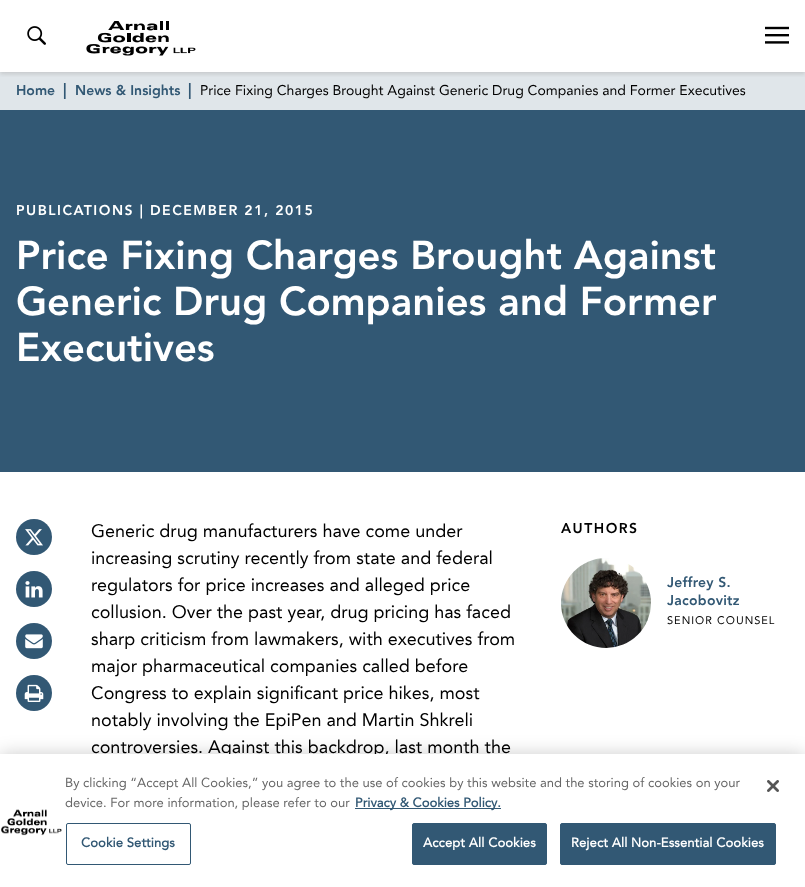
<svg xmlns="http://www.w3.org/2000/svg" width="805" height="887">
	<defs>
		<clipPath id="clip1"><rect x="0" y="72" width="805" height="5" /></clipPath>
	</defs>
	<rect width="100%" height="100%" fill="#FFFFFF" />
	<rect x="0" y="72" width="805" height="38" fill="#E0E6EA" />
	<g clip-path="url(#clip1)">
		<rect x="0" y="2" width="805" height="72" fill="#ABABAB" fill-opacity="0.5" filter="blur(2px)" />
	</g>
	<image x="27" y="26" width="19" height="19" href="assets/img1.png" />
	<image x="86" y="21" width="110" height="35" href="assets/img2.png" />
	<image x="765" y="26" width="24" height="18" href="assets/img3.png" />
	<text x="16" y="95" font-family="Avenir" font-size="14" fill="#325874">Home</text>
	<text x="63" y="95" font-family="Avenir" font-size="16" fill="#325874">|</text>
	<text x="75" y="95" font-family="Avenir" font-size="14" fill="#325874">News &amp; Insights</text>
	<text x="188" y="95" font-family="Avenir" font-size="16" fill="#325874">|</text>
	<text x="200" y="95" font-family="'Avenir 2'" font-size="14" fill="#000000">Price Fixing Charges Brought Against Generic Drug Companies and Former Executives</text>
	<rect x="0" y="110" width="805" height="362" fill="#325874" />
	<text x="16" y="215" font-family="Avenir" font-size="14" letter-spacing="1.5" fill="#FFFFFF">PUBLICATIONS | DECEMBER 21, 2015</text>
	<g font-family="Avenir" font-size="40" fill="#FFFFFF">
		<text x="16" y="269">Price Fixing Charges Brought Against</text>
		<text x="16" y="315">Generic Drug Companies and Former</text>
		<text x="16" y="361">Executives</text>
	</g>
	<circle cx="34" cy="537" r="18" fill="#325874" />
	<image x="25" y="529" width="18" height="17" href="assets/img4.png" />
	<circle cx="34" cy="589" r="18" fill="#325874" />
	<image x="25" y="581" width="18" height="17" href="assets/img5.png" />
	<circle cx="34" cy="641" r="18" fill="#325874" />
	<image x="25" y="634" width="18" height="15" href="assets/img6.png" />
	<circle cx="34" cy="693" r="18" fill="#325874" />
	<image x="24" y="684" width="20" height="18" href="assets/img7.png" />
	<g font-family="'Avenir 2'" font-size="18" fill="#000000">
		<text x="91" y="537">Generic drug manufacturers have come under</text>
		<text x="91" y="564">increasing scrutiny recently from state and federal</text>
		<text x="91" y="591">regulators for price increases and alleged price</text>
		<text x="91" y="618">collusion. Over the past year, drug pricing has faced</text>
		<text x="91" y="645">sharp criticism from lawmakers, with executives from</text>
		<text x="91" y="672">major pharmaceutical companies called before</text>
		<text x="91" y="699">Congress to explain significant price hikes, most</text>
		<text x="91" y="726">notably involving the EpiPen and Martin Shkreli</text>
		<text x="91" y="753">controversies. Against this backdrop, last month the</text>
	</g>
	<text x="561" y="533" font-family="Avenir" font-size="14" letter-spacing="1.5" fill="#000000">AUTHORS</text>
	<image x="561" y="558" width="90" height="90" href="assets/img8.png" />
	<g font-family="Avenir" font-size="14" letter-spacing="0.25" fill="#325874">
		<text x="667" y="587">Jeffrey S.</text>
		<text x="667" y="605">Jacobovitz</text>
	</g>
	<text x="667" y="624" font-family="'Avenir 2'" font-size="11" letter-spacing="1" fill="#000000">SENIOR COUNSEL</text>
	<rect x="0" y="754" width="805" height="133" fill="#000000" fill-opacity="0.2" filter="blur(9px)" />
	<rect x="0" y="754" width="805" height="133" fill="#FFFFFF" />
	<g font-family="'Avenir 2'" font-size="13" fill="#676767">
		<text x="65" y="787">By clicking “Accept All Cookies,” you agree to the use of cookies by this website and the storing of cookies on your</text>
		<text x="65" y="807">device. For more information, please refer to our</text>
	</g>
	<rect x="355" y="808" width="146" height="1" fill="#325874" />
	<text x="355" y="807" font-family="Avenir" font-size="13" font-weight="700" fill="#325874">Privacy &amp; Cookies Policy.</text>
	<image x="1" y="809" width="61" height="27" href="assets/img9.png" />
	<rect x="66.5" y="823.5" width="124" height="41" rx="1.5" fill="none" stroke="#325874" />
	<text x="81" y="847" font-family="Avenir" font-size="13" font-weight="700" letter-spacing="0.1" fill="#325874">Cookie Settings</text>
	<rect x="412.5" y="823.5" width="134" height="41" rx="1.5" fill="#325874" stroke="#325874" />
	<text x="423" y="847" font-family="Avenir" font-size="13" font-weight="700" letter-spacing="0.1" fill="#FFFFFF">Accept All Cookies</text>
	<rect x="560.5" y="823.5" width="215" height="41" rx="1.5" fill="#325874" stroke="#325874" />
	<text x="571" y="847" font-family="Avenir" font-size="13" font-weight="700" letter-spacing="0.1" fill="#FFFFFF">Reject All Non-Essential Cookies</text>
	<image x="767" y="780" width="12" height="12" href="assets/img10.png" />
</svg>
